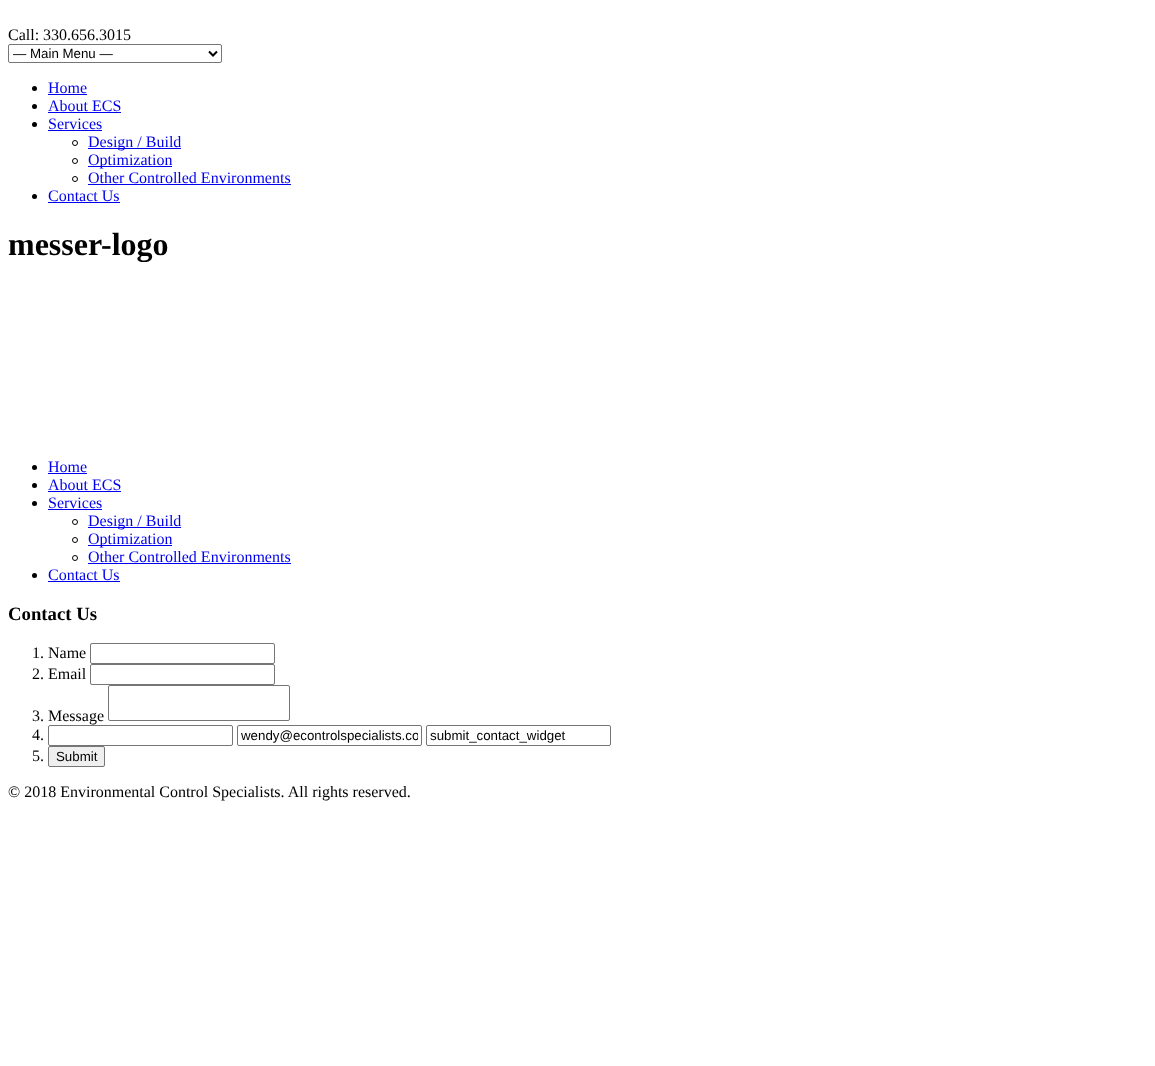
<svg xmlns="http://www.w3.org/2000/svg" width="1155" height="1066">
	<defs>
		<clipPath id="clip1"><rect x="241" y="728" width="177" height="15" /></clipPath>
	</defs>
	<rect width="100%" height="100%" fill="#FFFFFF" />
	<text x="8" y="40" font-family="Liberation Serif" font-size="16" fill="#000000">Call: 330.656.3015</text>
	<rect x="8.5" y="44.5" width="213" height="18" rx="1.5" fill="none" stroke="#767676" />
	<path d="M209 51.5L213 55.5L217 51.5" fill="none" stroke="#000000" stroke-width="2" />
	<text x="13" y="58" font-family="Liberation Sans" font-size="13.3" fill="#000000">— Main Menu —</text>
	<circle cx="34.5" cy="88.5" r="2.5" fill="#000000" />
	<text x="48" y="93" font-family="Liberation Serif" font-size="16" fill="#0000EE">Home</text>
	<rect x="48" y="94" width="39" height="1" fill="#0000EE" />
	<circle cx="34.5" cy="106.5" r="2.5" fill="#000000" />
	<text x="48" y="111" font-family="Liberation Serif" font-size="16" fill="#0000EE">About ECS</text>
	<rect x="48" y="112" width="73" height="1" fill="#0000EE" />
	<circle cx="34.5" cy="124.5" r="2.5" fill="#000000" />
	<text x="48" y="129" font-family="Liberation Serif" font-size="16" fill="#0000EE">Services</text>
	<rect x="48" y="130" width="54" height="1" fill="#0000EE" />
	<circle cx="75" cy="143" r="2.5" fill="none" stroke="#000000" />
	<rect x="88" y="148" width="93" height="1" fill="#0000EE" />
	<text x="88" y="147" font-family="Liberation Serif" font-size="16" fill="#0000EE">Design / Build</text>
	<circle cx="75" cy="161" r="2.5" fill="none" stroke="#000000" />
	<rect x="88" y="166" width="84" height="1" fill="#0000EE" />
	<text x="88" y="165" font-family="Liberation Serif" font-size="16" fill="#0000EE">Optimization</text>
	<circle cx="75" cy="179" r="2.5" fill="none" stroke="#000000" />
	<text x="88" y="183" font-family="Liberation Serif" font-size="16" fill="#0000EE">Other Controlled Environments</text>
	<rect x="88" y="184" width="203" height="1" fill="#0000EE" />
	<circle cx="34.5" cy="196.5" r="2.5" fill="#000000" />
	<text x="48" y="201" font-family="Liberation Serif" font-size="16" fill="#0000EE">Contact Us</text>
	<rect x="48" y="202" width="72" height="1" fill="#0000EE" />
	<text x="8" y="255" font-family="Liberation Serif" font-size="32" font-weight="700" fill="#000000">messer-logo</text>
	<circle cx="34.5" cy="467.5" r="2.5" fill="#000000" />
	<text x="48" y="472" font-family="Liberation Serif" font-size="16" fill="#0000EE">Home</text>
	<rect x="48" y="473" width="39" height="1" fill="#0000EE" />
	<circle cx="34.5" cy="485.5" r="2.5" fill="#000000" />
	<text x="48" y="490" font-family="Liberation Serif" font-size="16" fill="#0000EE">About ECS</text>
	<rect x="48" y="491" width="73" height="1" fill="#0000EE" />
	<circle cx="34.5" cy="503.5" r="2.5" fill="#000000" />
	<text x="48" y="508" font-family="Liberation Serif" font-size="16" fill="#0000EE">Services</text>
	<rect x="48" y="509" width="54" height="1" fill="#0000EE" />
	<circle cx="75" cy="522" r="2.5" fill="none" stroke="#000000" />
	<rect x="88" y="527" width="93" height="1" fill="#0000EE" />
	<text x="88" y="526" font-family="Liberation Serif" font-size="16" fill="#0000EE">Design / Build</text>
	<circle cx="75" cy="540" r="2.5" fill="none" stroke="#000000" />
	<rect x="88" y="545" width="84" height="1" fill="#0000EE" />
	<text x="88" y="544" font-family="Liberation Serif" font-size="16" fill="#0000EE">Optimization</text>
	<circle cx="75" cy="558" r="2.5" fill="none" stroke="#000000" />
	<text x="88" y="562" font-family="Liberation Serif" font-size="16" fill="#0000EE">Other Controlled Environments</text>
	<rect x="88" y="563" width="203" height="1" fill="#0000EE" />
	<circle cx="34.5" cy="575.5" r="2.5" fill="#000000" />
	<text x="48" y="580" font-family="Liberation Serif" font-size="16" fill="#0000EE">Contact Us</text>
	<rect x="48" y="581" width="72" height="1" fill="#0000EE" />
	<text x="8" y="620" font-family="Liberation Serif" font-size="18.75" font-weight="700" fill="#000000">Contact Us</text>
	<text x="32" y="658" font-family="Liberation Serif" font-size="16" fill="#000000">1. Name</text>
	<rect x="90.5" y="643.5" width="184" height="20" rx="1.5" fill="none" stroke="#767676" />
	<text x="32" y="679" font-family="Liberation Serif" font-size="16" fill="#000000">2. Email</text>
	<rect x="90.5" y="664.5" width="184" height="20" rx="1.5" fill="none" stroke="#767676" />
	<text x="32" y="721" font-family="Liberation Serif" font-size="16" fill="#000000">3. Message</text>
	<rect x="108.5" y="685.5" width="181" height="35" rx="1.5" fill="none" stroke="#767676" />
	<text x="32" y="740" font-family="Liberation Serif" font-size="16" fill="#000000">4.</text>
	<rect x="48.5" y="725.5" width="184" height="20" rx="1.5" fill="none" stroke="#767676" />
	<rect x="237.5" y="725.5" width="184" height="20" rx="1.5" fill="none" stroke="#767676" />
	<g clip-path="url(#clip1)">
		<text x="241" y="740" font-family="Liberation Sans" font-size="13.3" fill="#000000">wendy@econtrolspecialists.co</text>
	</g>
	<rect x="426.5" y="725.5" width="184" height="20" rx="1.5" fill="none" stroke="#767676" />
	<text x="430" y="740" font-family="Liberation Sans" font-size="13.3" fill="#000000">submit_contact_widget</text>
	<text x="32" y="761" font-family="Liberation Serif" font-size="16" fill="#000000">5.</text>
	<rect x="48.5" y="746.5" width="56" height="20" rx="1.5" fill="#EFEFEF" stroke="#767676" />
	<text x="56" y="761" font-family="Liberation Sans" font-size="13.3" fill="#000000">Submit</text>
	<text x="8" y="797" font-family="Liberation Serif" font-size="16" fill="#000000">© 2018 Environmental Control Specialists. All rights reserved.</text>
</svg>
